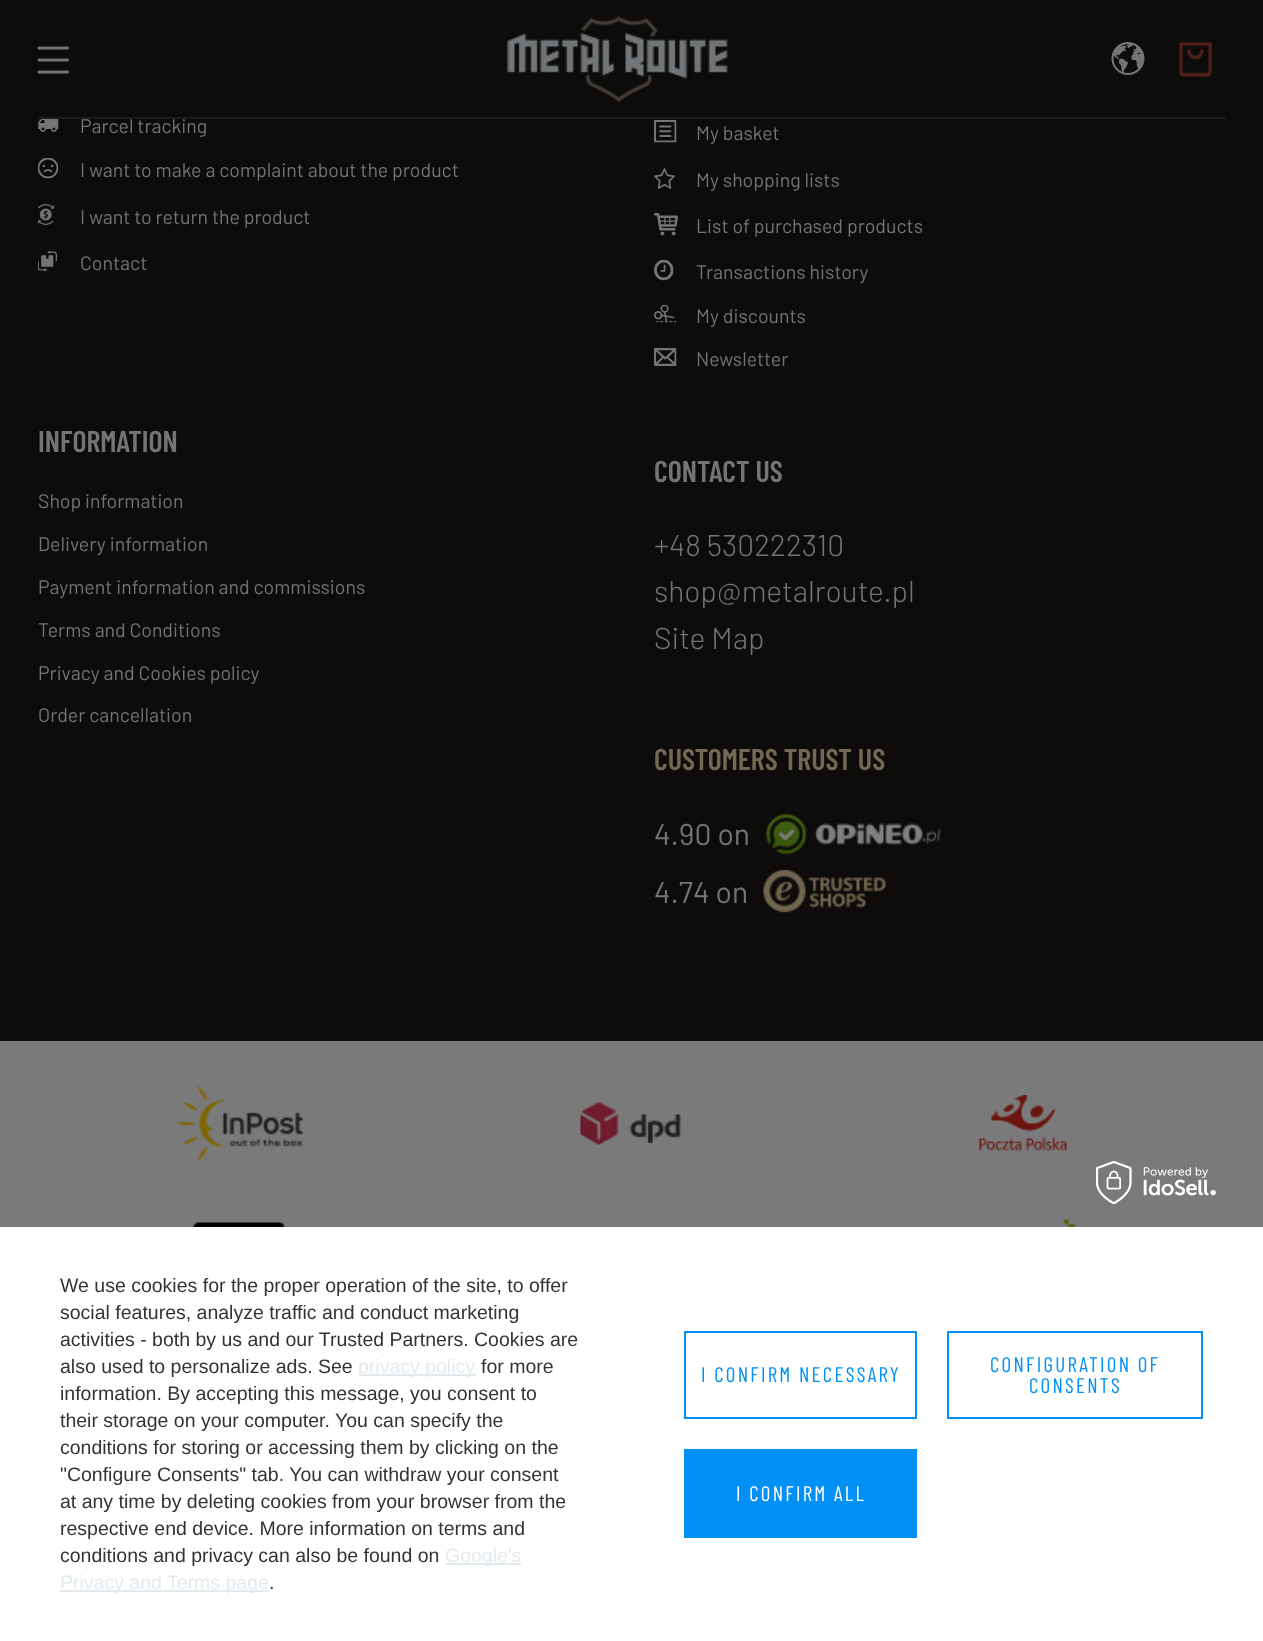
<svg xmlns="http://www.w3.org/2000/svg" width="1263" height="1641">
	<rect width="100%" height="100%" fill="#0D0C0B" />
	<rect x="38" y="117" width="1188" height="2" fill="#1E1C1A" />
	<image x="37" y="46" width="32" height="28" href="assets/img1.png" />
	<image x="506" y="16" width="222" height="86" href="assets/img2.png" />
	<image x="1111" y="42" width="34" height="33" href="assets/img3.png" />
	<image x="1179" y="42" width="34" height="35" href="assets/img4.png" />
	<image x="38" y="119" width="21" height="13" href="assets/img5.png" />
	<text x="80" y="133" font-family="Barlow" font-size="19.5" fill="#727577">Parcel tracking</text>
	<image x="38" y="158" width="21" height="21" href="assets/img6.png" />
	<text x="80" y="177" font-family="Barlow" font-size="19.5" fill="#727577">I want to make a complaint about the product</text>
	<image x="38" y="204" width="16" height="21" href="assets/img7.png" />
	<text x="80" y="224" font-family="Barlow" font-size="19.5" fill="#727577">I want to return the product</text>
	<image x="38" y="251" width="19" height="21" href="assets/img8.png" />
	<text x="80" y="270" font-family="Barlow" font-size="19.5" fill="#727577">Contact</text>
	<image x="654" y="120" width="23" height="23" href="assets/img9.png" />
	<text x="696" y="140" font-family="Barlow" font-size="19.5" fill="#727577">My basket</text>
	<image x="654" y="168" width="21" height="21" href="assets/img10.png" />
	<text x="696" y="187" font-family="Barlow" font-size="19.5" fill="#727577">My shopping lists</text>
	<image x="654" y="213" width="24" height="23" href="assets/img11.png" />
	<text x="696" y="233" font-family="Barlow" font-size="19.5" fill="#727577">List of purchased products</text>
	<image x="654" y="260" width="20" height="21" href="assets/img12.png" />
	<text x="696" y="279" font-family="Barlow" font-size="19.5" fill="#727577">Transactions history</text>
	<image x="654" y="305" width="23" height="18" href="assets/img13.png" />
	<text x="696" y="323" font-family="Barlow" font-size="19.5" fill="#727577">My discounts</text>
	<image x="654" y="348" width="23" height="18" href="assets/img14.png" />
	<text x="696" y="366" font-family="Barlow" font-size="19.5" fill="#727577">Newsletter</text>
	<text x="38" y="452" font-family="Barlow Condensed" font-size="30" font-weight="600" fill="#727577">INFORMATION</text>
	<g font-family="Barlow" font-size="19.5" fill="#727577">
		<text x="38" y="508">Shop information</text>
		<text x="38" y="551">Delivery information</text>
		<text x="38" y="594">Payment information and commissions</text>
		<text x="38" y="637">Terms and Conditions</text>
		<text x="38" y="680">Privacy and Cookies policy</text>
		<text x="38" y="722">Order cancellation</text>
	</g>
	<text x="654" y="482" font-family="Barlow Condensed" font-size="30" font-weight="600" fill="#727577">CONTACT US</text>
	<g font-family="Barlow" font-size="30" font-weight="300" fill="#727577">
		<text x="654" y="556">+48 530222310</text>
		<text x="654" y="602">shop@metalroute.pl</text>
		<text x="654" y="649">Site Map</text>
	</g>
	<text x="654" y="770" font-family="Barlow Condensed" font-size="30" font-weight="600" fill="#736851">CUSTOMERS TRUST US</text>
	<text x="654" y="845" font-family="Barlow" font-size="30" fill="#727577">4.90 on</text>
	<image x="765" y="813" width="176" height="42" href="assets/img15.png" />
	<text x="654" y="903" font-family="Barlow" font-size="30" fill="#727577">4.74 on</text>
	<image x="763" y="870" width="124" height="43" href="assets/img16.png" />
	<rect x="0" y="1041" width="1263" height="186" fill="#7A7A7A" />
	<image x="177" y="1086" width="126" height="75" href="assets/img17.png" />
	<image x="580" y="1102" width="101" height="43" href="assets/img18.png" />
	<image x="979" y="1095" width="88" height="56" href="assets/img19.png" />
	<image x="193" y="1222" width="92" height="5" href="assets/img20.png" />
	<image x="1063" y="1219" width="13" height="8" href="assets/img21.png" />
	<rect x="0" y="1227" width="1263" height="414" fill="#FFFFFF" />
	<image x="1096" y="1161" width="120" height="43" href="assets/img22.png" />
	<g font-family="Liberation Sans" font-size="19.5" fill="#333333">
		<text x="60" y="1292">We use cookies for the proper operation of the site, to offer</text>
		<text x="60" y="1319">social features, analyze traffic and conduct marketing</text>
		<text x="60" y="1346">activities - both by us and our Trusted Partners. Cookies are</text>
		<text x="60" y="1373">also used to personalize ads. See</text>
	</g>
	<rect x="359" y="1374" width="117" height="2" fill="#E3EAEE" />
	<text x="358" y="1373" font-family="Liberation Sans" font-size="19.5" fill="#E3EAEE">privacy policy</text>
	<g font-family="Liberation Sans" font-size="19.5" fill="#333333">
		<text x="481" y="1373">for more</text>
		<text x="60" y="1400">information. By accepting this message, you consent to</text>
		<text x="60" y="1427">their storage on your computer. You can specify the</text>
		<text x="60" y="1454">conditions for storing or accessing them by clicking on the</text>
		<text x="60" y="1481">"Configure Consents" tab. You can withdraw your consent</text>
		<text x="60" y="1508">at any time by deleting cookies from your browser from the</text>
		<text x="60" y="1535">respective end device. More information on terms and</text>
		<text x="60" y="1562">conditions and privacy can also be found on</text>
	</g>
	<rect x="446" y="1563" width="75" height="2" fill="#E3EAEE" />
	<text x="445" y="1562" font-family="Liberation Sans" font-size="19.5" fill="#E3EAEE">Google's</text>
	<rect x="60" y="1590" width="209" height="2" fill="#E3EAEE" />
	<text x="60" y="1589" font-family="Liberation Sans" font-size="19.5" fill="#E3EAEE">Privacy and Terms page</text>
	<text x="269" y="1589" font-family="Liberation Sans" font-size="19.5" fill="#333333">.</text>
	<rect x="685" y="1332" width="231" height="86" fill="none" stroke="#0090F6" stroke-width="2" />
	<text x="701" y="1382" font-family="Barlow Condensed" font-size="21" letter-spacing="2.25" fill="#0090F6">I CONFIRM NECESSARY</text>
	<rect x="948" y="1332" width="254" height="86" fill="none" stroke="#0090F6" stroke-width="2" />
	<g font-family="Barlow Condensed" font-size="21" letter-spacing="2.25" fill="#0090F6">
		<text x="990" y="1372">CONFIGURATION OF</text>
		<text x="1029" y="1393">CONSENTS</text>
	</g>
	<rect x="684" y="1449" width="233" height="89" fill="#0090F6" />
	<text x="736" y="1501" font-family="Barlow Condensed" font-size="21" letter-spacing="2.25" fill="#FFFFFF">I CONFIRM ALL</text>
</svg>
